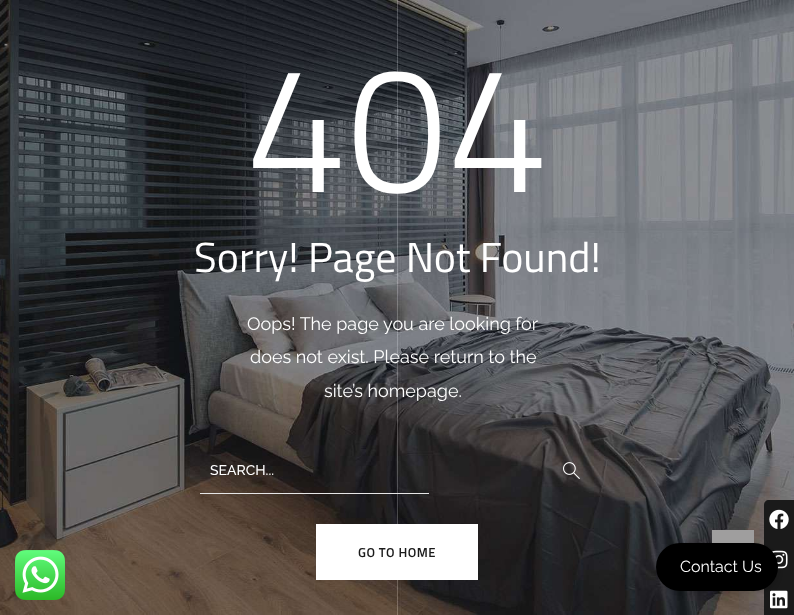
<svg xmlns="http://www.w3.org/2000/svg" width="794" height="615">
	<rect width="100%" height="100%" fill="#FFFFFF" />
	<image x="0" y="0" width="794" height="615" href="assets/img1.png" />
	<text x="246" y="192" font-family="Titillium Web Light" font-size="180" font-weight="300" fill="#FFFFFF">404</text>
	<text x="194" y="272" font-family="Titillium Web" font-size="42" fill="#FFFFFF">Sorry! Page Not Found!</text>
	<g font-family="Raleway" font-size="18" fill="#FFFFFF">
		<text x="247" y="330">Oops! The page you are looking for</text>
		<text x="250" y="363">does not exist. Please return to the</text>
		<text x="324" y="397">site’s homepage.</text>
	</g>
	<rect x="200" y="493" width="229" height="1" fill="#E6E6E6" />
	<text x="210" y="475" font-family="Raleway" font-size="14" font-weight="500" fill="#FFFFFF">SEARCH...</text>
	<image x="563" y="462" width="17" height="17" href="assets/img2.png" />
	<rect x="316" y="524" width="162" height="56" fill="#FFFFFF" />
	<text x="358" y="557" font-family="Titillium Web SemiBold" font-size="13" font-weight="600" letter-spacing="0.5" fill="#1A1A1A">GO TO HOME</text>
	<rect x="712" y="530" width="42" height="13" fill="#9F9E9E" />
	<path d="M769 500H794V540H764V505C764 502 766 500 769 500Z" fill="#1A1A1A" />
	<image x="769" y="509" width="20" height="20" href="assets/img3.png" />
	<rect x="764" y="540" width="30" height="75" fill="#1A1A1A" />
	<image x="771" y="550" width="17" height="19" href="assets/img4.png" />
	<image x="770" y="590" width="18" height="19" href="assets/img5.png" />
	<image x="15" y="550" width="50" height="50" href="assets/img6.png" />
	<rect x="657" y="546" width="120" height="46" rx="23" fill="#000000" fill-opacity="0.06" filter="blur(2px)" />
	<rect x="657" y="548" width="120" height="46" rx="23" fill="#000000" fill-opacity="0.1" filter="blur(3px)" />
	<rect x="656" y="543" width="122" height="48" rx="24" fill="#000000" />
	<text x="680" y="572" font-family="Raleway" font-size="16" fill="#FFFFFF">Contact Us</text>
</svg>
